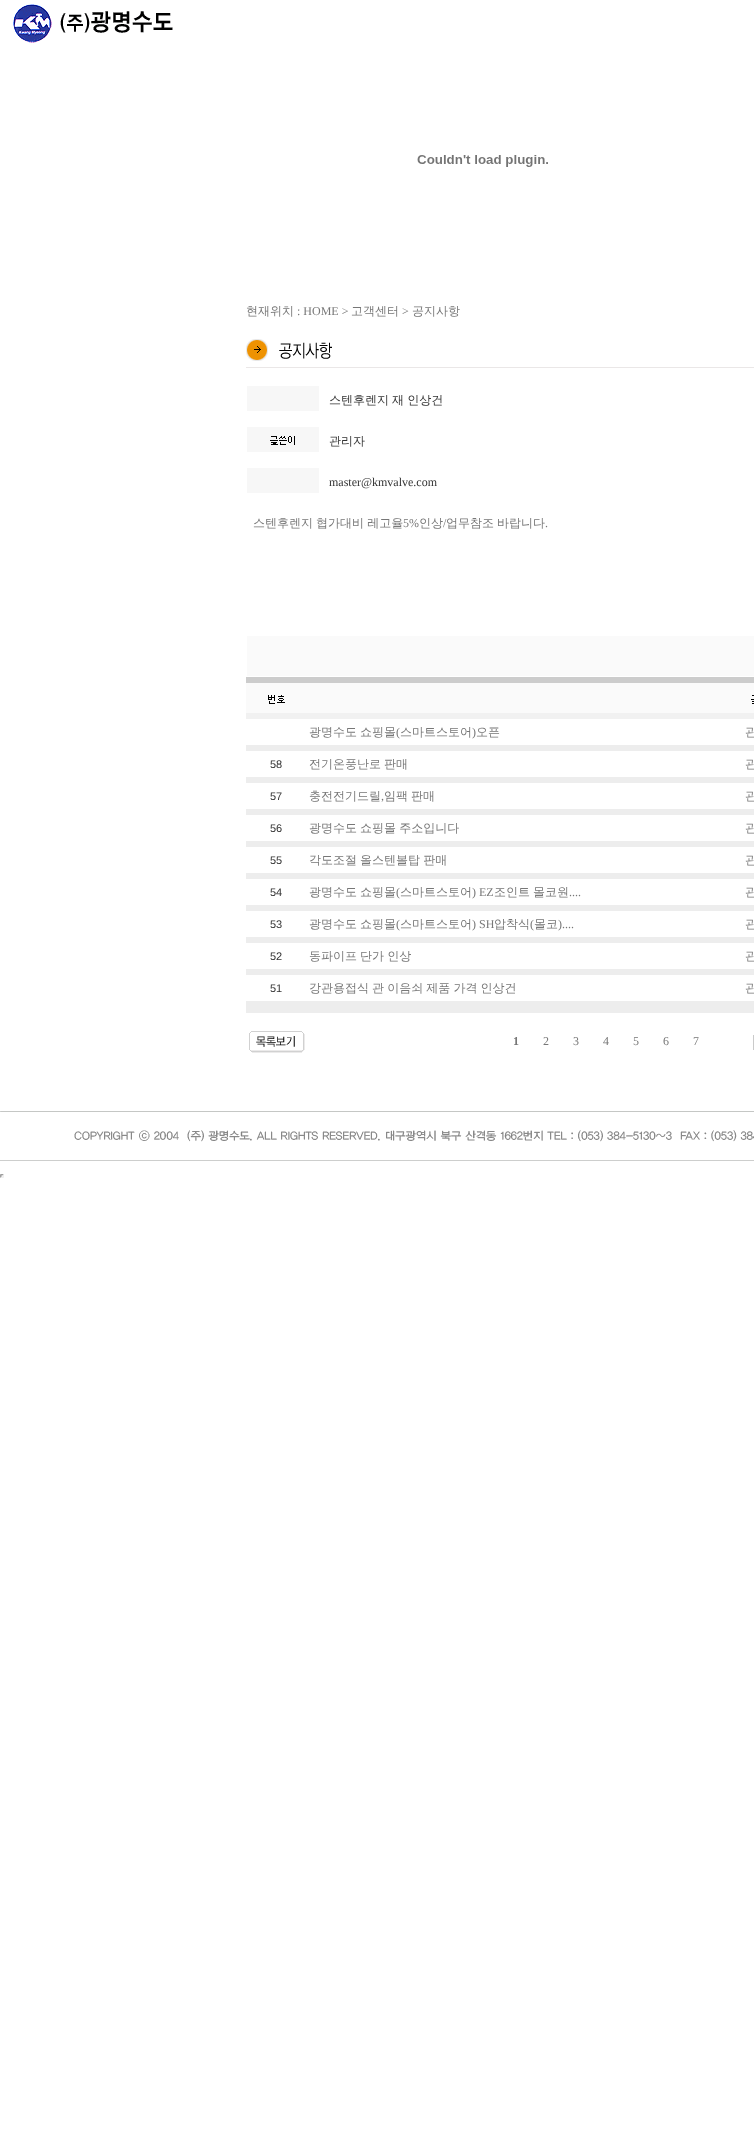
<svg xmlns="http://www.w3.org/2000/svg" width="754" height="2150">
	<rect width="100%" height="100%" fill="#FFFFFF" />
	<image x="13" y="4" width="160" height="39" href="assets/img1.png" />
	<image x="417" y="155" width="131" height="12" href="assets/img2.png" />
	<text x="246" y="315" font-family="WenQuanYi Zen Hei" font-size="12" font-weight="500" fill="#777777">현재위치</text>
	<text x="297" y="315" font-family="Liberation Serif" font-size="12" fill="#777777">: HOME &gt;</text>
	<text x="351" y="315" font-family="WenQuanYi Zen Hei" font-size="12" font-weight="500" fill="#777777">고객센터</text>
	<text x="402" y="315" font-family="Liberation Serif" font-size="12" fill="#777777">&gt;</text>
	<text x="412" y="315" font-family="WenQuanYi Zen Hei" font-size="12" font-weight="500" fill="#777777">공지사항</text>
	<rect x="246" y="367" width="508" height="1" fill="#EAE7E7" />
	<image x="246" y="339" width="86" height="22" href="assets/img3.png" />
	<rect x="247" y="386" width="72" height="25" fill="#F7F7F7" />
	<text x="329" y="404" word-spacing="-0.5" font-family="WenQuanYi Zen Hei" font-size="12" font-weight="500" fill="#333333">스텐후렌지 재 인상건</text>
	<rect x="247" y="427" width="72" height="25" fill="#F7F7F7" />
	<image x="270" y="436" width="25" height="9" href="assets/img4.png" />
	<text x="329" y="445" font-family="WenQuanYi Zen Hei" font-size="12" font-weight="500" fill="#333333">관리자</text>
	<rect x="247" y="468" width="72" height="25" fill="#F7F7F7" />
	<text x="329" y="486" font-family="Liberation Serif" font-size="12" fill="#333333">master@kmvalve.com</text>
	<text x="253" y="527" word-spacing="-0.5" font-family="WenQuanYi Zen Hei" font-size="12" font-weight="500" fill="#777777">스텐후렌지 협가대비 레고율</text>
	<text x="403" y="527" font-family="Liberation Serif" font-size="12" fill="#777777">5%</text>
	<text x="419" y="527" font-family="WenQuanYi Zen Hei" font-size="12" font-weight="500" fill="#777777">인상</text>
	<text x="443" y="527" font-family="Liberation Serif" font-size="12" fill="#777777">/</text>
	<text x="446" y="527" word-spacing="-0.5" font-family="WenQuanYi Zen Hei" font-size="12" font-weight="500" fill="#777777">업무참조 바랍니다</text>
	<text x="545" y="527" font-family="Liberation Serif" font-size="12" fill="#777777">.</text>
	<rect x="247" y="636" width="507" height="40" fill="#FAFAFA" />
	<rect x="246" y="677" width="508" height="6" fill="#CCCCCC" />
	<rect x="246" y="683" width="508" height="30" fill="#FAFAFA" />
	<image x="268" y="695" width="17" height="9" href="assets/img5.png" />
	<image x="751" y="695" width="3" height="9" href="assets/img6.png" />
	<rect x="246" y="713" width="508" height="6" fill="#F1F1F1" />
	<text x="309" y="736" word-spacing="-0.5" font-family="WenQuanYi Zen Hei" font-size="12" font-weight="500" fill="#777777">광명수도 쇼핑몰</text>
	<text x="396" y="736" font-family="Liberation Serif" font-size="12" fill="#777777">(</text>
	<text x="400" y="736" font-family="WenQuanYi Zen Hei" font-size="12" font-weight="500" fill="#777777">스마트스토어</text>
	<text x="472" y="736" font-family="Liberation Serif" font-size="12" fill="#777777">)</text>
	<g font-family="WenQuanYi Zen Hei" font-size="12" font-weight="500" fill="#777777">
		<text x="476" y="736">오픈</text>
		<text x="745" y="736">관</text>
	</g>
	<rect x="246" y="745" width="508" height="6" fill="#EDEDED" />
	<text x="270" y="768" font-family="Liberation Sans" font-size="11" fill="#333333">58</text>
	<g font-family="WenQuanYi Zen Hei" font-size="12" font-weight="500" fill="#777777">
		<text x="309" y="768" word-spacing="-0.5">전기온풍난로 판매</text>
		<text x="745" y="768">관</text>
	</g>
	<rect x="246" y="777" width="508" height="6" fill="#EDEDED" />
	<text x="270" y="800" font-family="Liberation Sans" font-size="11" fill="#333333">57</text>
	<text x="309" y="800" font-family="WenQuanYi Zen Hei" font-size="12" font-weight="500" fill="#777777">충전전기드릴</text>
	<text x="381" y="800" font-family="Liberation Serif" font-size="12" fill="#777777">,</text>
	<g font-family="WenQuanYi Zen Hei" font-size="12" font-weight="500" fill="#777777">
		<text x="384" y="800" word-spacing="-0.5">임팩 판매</text>
		<text x="745" y="800">관</text>
	</g>
	<rect x="246" y="809" width="508" height="6" fill="#EDEDED" />
	<text x="270" y="832" font-family="Liberation Sans" font-size="11" fill="#333333">56</text>
	<g font-family="WenQuanYi Zen Hei" font-size="12" font-weight="500" fill="#777777">
		<text x="309" y="832" word-spacing="-0.5">광명수도 쇼핑몰 주소입니다</text>
		<text x="745" y="832">관</text>
	</g>
	<rect x="246" y="841" width="508" height="6" fill="#EDEDED" />
	<text x="270" y="864" font-family="Liberation Sans" font-size="11" fill="#333333">55</text>
	<g font-family="WenQuanYi Zen Hei" font-size="12" font-weight="500" fill="#777777">
		<text x="309" y="864" word-spacing="-0.5">각도조절 올스텐볼탑 판매</text>
		<text x="745" y="864">관</text>
	</g>
	<rect x="246" y="873" width="508" height="6" fill="#EDEDED" />
	<text x="270" y="896" font-family="Liberation Sans" font-size="11" fill="#333333">54</text>
	<g font-family="WenQuanYi Zen Hei" font-size="12" font-weight="500" fill="#777777">
		<text x="309" y="896">광명수도</text>
		<text x="360" y="896">쇼핑몰</text>
	</g>
	<text x="396" y="896" font-family="Liberation Serif" font-size="12" fill="#777777">(</text>
	<text x="400" y="896" font-family="WenQuanYi Zen Hei" font-size="12" font-weight="500" fill="#777777">스마트스토어</text>
	<text x="472" y="896" font-family="Liberation Serif" font-size="12" fill="#777777">) EZ</text>
	<g font-family="WenQuanYi Zen Hei" font-size="12" font-weight="500" fill="#777777">
		<text x="494" y="896">조인트</text>
		<text x="533" y="896">몰코원</text>
	</g>
	<text x="569" y="896" font-family="Liberation Serif" font-size="12" fill="#777777">....</text>
	<text x="745" y="896" font-family="WenQuanYi Zen Hei" font-size="12" font-weight="500" fill="#777777">관</text>
	<rect x="246" y="905" width="508" height="6" fill="#EDEDED" />
	<text x="270" y="928" font-family="Liberation Sans" font-size="11" fill="#333333">53</text>
	<g font-family="WenQuanYi Zen Hei" font-size="12" font-weight="500" fill="#777777">
		<text x="309" y="928">광명수도</text>
		<text x="360" y="928">쇼핑몰</text>
	</g>
	<text x="396" y="928" font-family="Liberation Serif" font-size="12" fill="#777777">(</text>
	<text x="400" y="928" font-family="WenQuanYi Zen Hei" font-size="12" font-weight="500" fill="#777777">스마트스토어</text>
	<text x="472" y="928" font-family="Liberation Serif" font-size="12" fill="#777777">) SH</text>
	<text x="494" y="928" font-family="WenQuanYi Zen Hei" font-size="12" font-weight="500" fill="#777777">압착식</text>
	<text x="530" y="928" font-family="Liberation Serif" font-size="12" fill="#777777">(</text>
	<text x="534" y="928" font-family="WenQuanYi Zen Hei" font-size="12" font-weight="500" fill="#777777">몰코</text>
	<text x="558" y="928" font-family="Liberation Serif" font-size="12" fill="#777777">)....</text>
	<text x="745" y="928" font-family="WenQuanYi Zen Hei" font-size="12" font-weight="500" fill="#777777">관</text>
	<rect x="246" y="937" width="508" height="6" fill="#EDEDED" />
	<text x="270" y="960" font-family="Liberation Sans" font-size="11" fill="#333333">52</text>
	<g font-family="WenQuanYi Zen Hei" font-size="12" font-weight="500" fill="#777777">
		<text x="309" y="960" word-spacing="-0.5">동파이프 단가 인상</text>
		<text x="745" y="960">관</text>
	</g>
	<rect x="246" y="969" width="508" height="6" fill="#EDEDED" />
	<text x="270" y="992" font-family="Liberation Sans" font-size="11" fill="#333333">51</text>
	<g font-family="WenQuanYi Zen Hei" font-size="12" font-weight="500" fill="#777777">
		<text x="309" y="992" word-spacing="-0.5">강관용접식 관 이음쇠 제품 가격 인상건</text>
		<text x="745" y="992">관</text>
	</g>
	<rect x="246" y="1001" width="508" height="12" fill="#EDEDED" />
	<image x="249" y="1031" width="56" height="22" href="assets/img7.png" />
	<text x="513" y="1045" font-family="Liberation Serif" font-size="12" font-weight="700" fill="#777777">1</text>
	<g font-family="Liberation Serif" font-size="12" fill="#777777">
		<text x="543" y="1045">2</text>
		<text x="573" y="1045">3</text>
		<text x="603" y="1045">4</text>
		<text x="633" y="1045">5</text>
		<text x="663" y="1045">6</text>
		<text x="693" y="1045">7</text>
	</g>
	<rect x="753" y="1035" width="1" height="15" fill="#CACACA" />
	<image x="0" y="1111" width="754" height="50" href="assets/img8.png" />
	<path d="M0 1174H4L2 1176Z" fill="#9F9F9F" />
	<path d="M4 1174V1178L2 1176Z" fill="#EEEEEE" />
	<path d="M4 1178H0L2 1176Z" fill="#EEEEEE" />
	<path d="M0 1178V1174L2 1176Z" fill="#9F9F9F" />
</svg>
